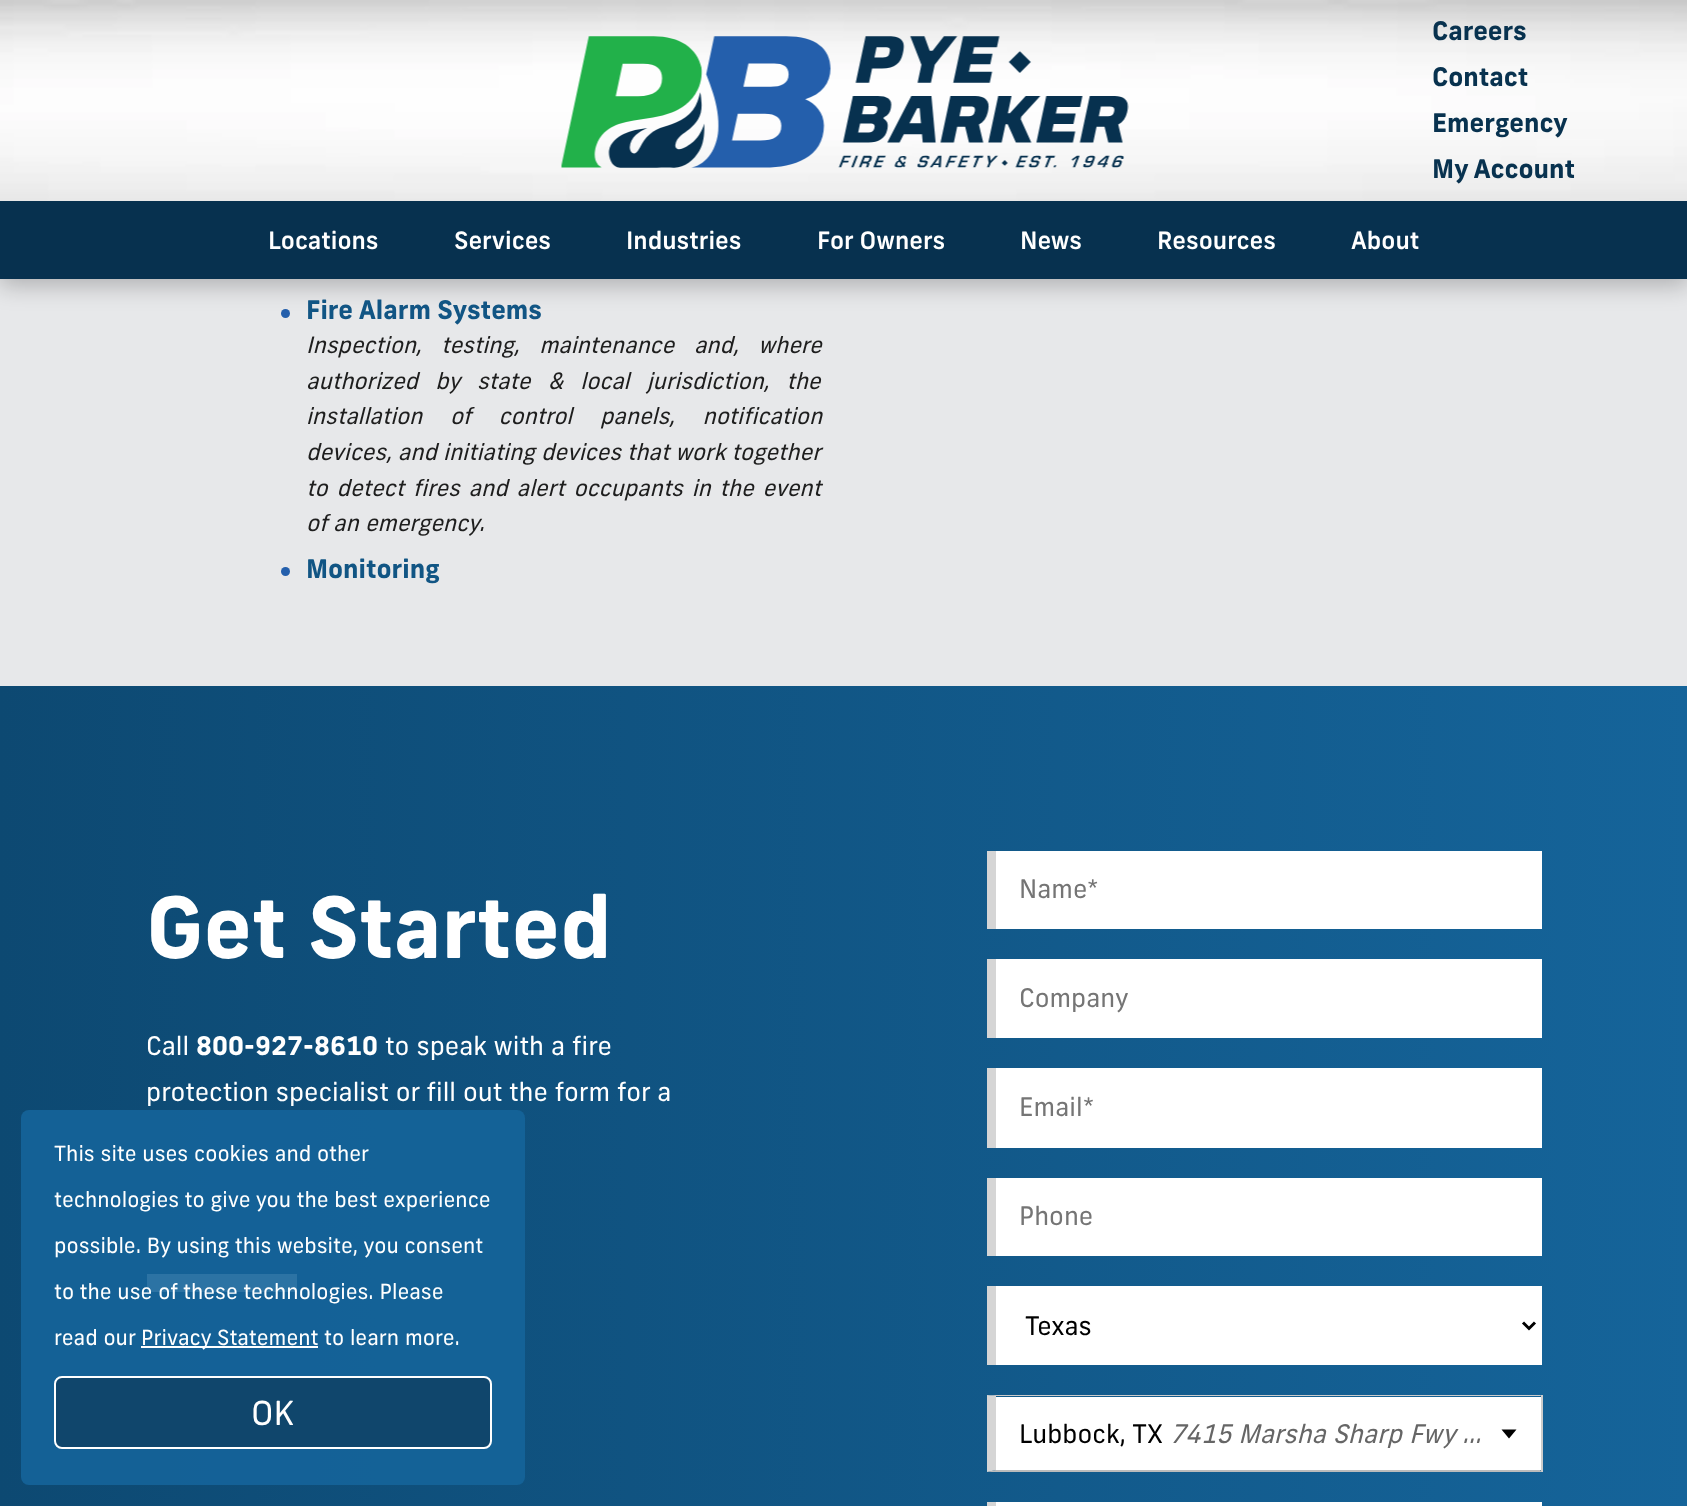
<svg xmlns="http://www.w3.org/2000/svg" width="1687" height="1506">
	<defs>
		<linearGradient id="g1" gradientUnits="userSpaceOnUse" x1="0" y1="1418" x2="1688" y2="1418"><stop offset="0" stop-color="#0D4972" /><stop offset="1" stop-color="#15649A" /></linearGradient>
	</defs>
	<rect width="100%" height="100%" fill="#E7E8EA" />
	<circle cx="285.5" cy="313.5" r="4.5" fill="#245FAC" />
	<rect x="-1" y="3" width="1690" height="282" fill="#000000" fill-opacity="0.25" filter="blur(12px)" />
	<image x="0" y="0" width="1687" height="201" href="assets/img1.png" />
	<image x="561" y="36" width="568" height="132" href="assets/img2.png" />
	<g font-family="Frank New" font-size="25.5" font-weight="700" fill="#08324F">
		<text x="1432" y="40">Careers</text>
		<text x="1432" y="86">Contact</text>
		<text x="1432" y="132">Emergency</text>
		<text x="1432" y="178">My Account</text>
	</g>
	<rect x="0" y="201" width="1687" height="78" fill="#07314F" />
	<g font-family="Frank New" font-size="24" font-weight="500" fill="#FFFFFF">
		<text x="268" y="249">Locations</text>
		<text x="454" y="249">Services</text>
		<text x="626" y="249">Industries</text>
		<text x="817" y="249">For Owners</text>
		<text x="1020" y="249">News</text>
		<text x="1157" y="249">Resources</text>
		<text x="1351" y="249">About</text>
	</g>
	<text x="306" y="319" font-family="Frank New" font-size="25.5" font-weight="700" fill="#115584">Fire Alarm Systems</text>
	<g font-family="Frank New" font-size="22.5" font-style="italic" fill="#1E1E1E">
		<text x="306" y="353" word-spacing="13.5">Inspection, testing, maintenance and, where</text>
		<text x="306" y="389" word-spacing="11">authorized by state &amp; local jurisdiction, the</text>
		<text x="306" y="424" word-spacing="21.5">installation of control panels, notification</text>
		<text x="306" y="460">devices, and initiating devices that work together</text>
		<text x="306" y="496" word-spacing="2.75">to detect fires and alert occupants in the event</text>
		<text x="306" y="531">of an emergency.</text>
	</g>
	<circle cx="285.5" cy="571.5" r="4.5" fill="#245FAC" />
	<text x="306" y="578" font-family="Frank New" font-size="25.5" font-weight="700" fill="#115584">Monitoring</text>
	<rect x="0" y="686" width="1687" height="820" fill="url(#g1)" />
	<text x="146" y="958" font-family="Frank New" font-size="84" font-weight="700" fill="#FFFFFF">Get Started</text>
	<text x="146" y="1055" font-family="Frank New" font-size="25.5" fill="#FFFFFF">Call</text>
	<text x="196" y="1055" font-family="Frank New" font-size="25.5" font-weight="700" fill="#FFFFFF">800-927-8610</text>
	<g font-family="Frank New" font-size="25.5" fill="#FFFFFF">
		<text x="385" y="1055">to speak with a fire</text>
		<text x="146" y="1101">protection specialist or fill out the form for a</text>
	</g>
	<rect x="147" y="1274" width="150" height="18" fill="#FFFFFF" />
	<rect x="996" y="851" width="546" height="78" fill="#FFFFFF" />
	<rect x="987" y="851" width="9" height="78" fill="#D5D5D5" />
	<text x="1019" y="898" font-family="Frank New" font-size="25.5" fill="#757575">Name*</text>
	<rect x="996" y="959" width="546" height="79" fill="#FFFFFF" />
	<rect x="987" y="959" width="9" height="79" fill="#D5D5D5" />
	<text x="1019" y="1007" font-family="Frank New" font-size="25.5" fill="#757575">Company</text>
	<rect x="996" y="1068" width="546" height="80" fill="#FFFFFF" />
	<rect x="987" y="1068" width="9" height="80" fill="#D5D5D5" />
	<text x="1019" y="1116" font-family="Frank New" font-size="25.5" fill="#757575">Email*</text>
	<rect x="996" y="1178" width="546" height="78" fill="#FFFFFF" />
	<rect x="987" y="1178" width="9" height="78" fill="#D5D5D5" />
	<text x="1019" y="1225" font-family="Frank New" font-size="25.5" fill="#757575">Phone</text>
	<rect x="996" y="1286" width="546" height="79" fill="#FFFFFF" />
	<rect x="987" y="1286" width="9" height="79" fill="#D5D5D5" />
	<path d="M1523 1322.5L1529 1328.5L1535 1322.5" fill="none" stroke="#000000" stroke-width="3" />
	<text x="1025" y="1335" font-family="Frank New" font-size="25.5" fill="#000000">Texas</text>
	<rect x="996" y="1397" width="545" height="73" fill="#FFFFFF" />
	<path d="M987 1395H1542L1540 1396H996Z" fill="#CCCCCC" />
	<rect x="1541" y="1395" width="2" height="77" fill="#CCCCCC" />
	<path d="M1542 1472H987L996 1470H1540Z" fill="#BBBBBB" />
	<path d="M987 1472V1395L996 1396V1470Z" fill="#D5D5D5" />
	<text x="1019" y="1443" font-family="Frank New" font-size="25.5" fill="#000000">Lubbock, TX</text>
	<text x="1170" y="1443" font-family="Frank New" font-size="25.5" font-style="italic" fill="#666666">7415 Marsha Sharp Fwy …</text>
	<path d="M1501.5 1429.5H1516.5L1509 1438.5Z" fill="#000000" />
	<rect x="996" y="1502" width="546" height="4" fill="#FFFFFF" />
	<rect x="987" y="1502" width="9" height="4" fill="#D5D5D5" />
	<rect x="21" y="1110" width="504" height="375" rx="8" fill="#15649A" fill-opacity="0.9" />
	<g font-family="Frank New" font-size="21" fill="#FFFFFF">
		<text x="54" y="1161">This site uses cookies and other</text>
		<text x="54" y="1207">technologies to give you the best experience</text>
		<text x="54" y="1253">possible. By using this website, you consent</text>
		<text x="54" y="1299">to the use of these technologies. Please</text>
		<text x="54" y="1345">read our</text>
	</g>
	<rect x="141" y="1346" width="177" height="2" fill="#FFFFFF" />
	<g font-family="Frank New" font-size="21" fill="#FFFFFF">
		<text x="141" y="1345">Privacy Statement</text>
		<text x="324" y="1345">to learn more.</text>
	</g>
	<rect x="55" y="1377" width="436" height="71" rx="7" fill="#10466C" stroke="#FFFFFF" stroke-width="2" />
	<text x="251" y="1425" font-family="Frank New" font-size="33" fill="#FFFFFF">OK</text>
</svg>
